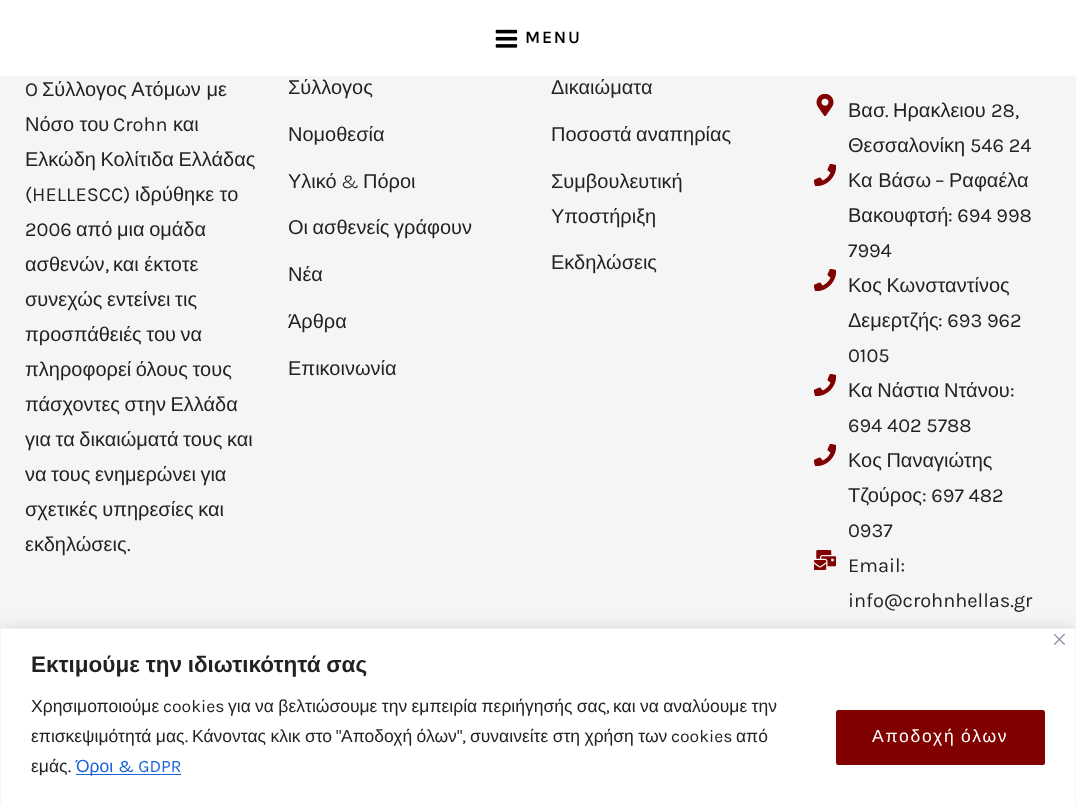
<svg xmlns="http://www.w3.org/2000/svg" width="1076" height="803">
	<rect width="100%" height="100%" fill="#F5F5F5" />
	<rect x="0" y="0" width="1076" height="76" fill="#FFFFFF" />
	<image x="495" y="29" width="23" height="19" href="assets/img1.png" />
	<text x="525" y="43" font-family="Karla" font-size="17.5" font-weight="600" letter-spacing="1.75" fill="#000000">MENU</text>
	<text x="25" y="96" font-family="Karla" font-size="20" fill="#222222">O</text>
	<g font-family="Liberation Sans" font-size="20" fill="#222222">
		<text x="42" y="96">Σύλλογος Ατόμων με</text>
		<text x="25" y="131">Νόσο του</text>
	</g>
	<text x="113" y="131" font-family="Karla" font-size="20" fill="#222222">Crohn</text>
	<g font-family="Liberation Sans" font-size="20" fill="#222222">
		<text x="173" y="131">και</text>
		<text x="25" y="166" word-spacing="-1">Ελκώδη Κολίτιδα Ελλάδας</text>
	</g>
	<text x="25" y="201" font-family="Karla" font-size="20" fill="#222222">(HELLESCC)</text>
	<text x="135" y="201" font-family="Liberation Sans" font-size="20" fill="#222222">ιδρύθηκε το</text>
	<text x="25" y="236" font-family="Karla" font-size="20" fill="#222222">2006</text>
	<g font-family="Liberation Sans" font-size="20" fill="#222222">
		<text x="76" y="236" word-spacing="-1">από μια ομάδα</text>
		<text x="25" y="271">ασθενών</text>
	</g>
	<text x="105" y="271" font-family="Karla" font-size="20" fill="#222222">,</text>
	<g font-family="Liberation Sans" font-size="20" fill="#222222">
		<text x="113" y="271">και έκτοτε</text>
		<text x="25" y="306" word-spacing="-1">συνεχώς εντείνει τις</text>
		<text x="25" y="341" word-spacing="-1">προσπάθειές του να</text>
		<text x="25" y="376" word-spacing="-1">πληροφορεί όλους τους</text>
		<text x="25" y="411" word-spacing="-1">πάσχοντες στην Ελλάδα</text>
		<text x="25" y="446" word-spacing="-1">για τα δικαιώματά τους και</text>
		<text x="25" y="481" word-spacing="-1">να τους ενημερώνει για</text>
		<text x="25" y="516" word-spacing="-1">σχετικές υπηρεσίες και</text>
		<text x="25" y="551">εκδηλώσεις</text>
	</g>
	<text x="127" y="551" font-family="Karla" font-size="20" fill="#222222">.</text>
	<g font-family="Liberation Sans" font-size="20" fill="#222222">
		<text x="288" y="94">Σύλλογος</text>
		<text x="288" y="141">Νομοθεσία</text>
		<text x="288" y="188">Υλικό</text>
	</g>
	<text x="341" y="188" font-family="Karla" font-size="20" font-weight="300" fill="#222222">&amp;</text>
	<g font-family="Liberation Sans" font-size="20" fill="#222222">
		<text x="363" y="188">Πόροι</text>
		<text x="288" y="234" word-spacing="-1">Οι ασθενείς γράφουν</text>
		<text x="288" y="281">Νέα</text>
		<text x="288" y="328">Άρθρα</text>
		<text x="288" y="375">Επικοινωνία</text>
		<text x="551" y="94">Δικαιώματα</text>
		<text x="551" y="141" word-spacing="-1">Ποσοστά αναπηρίας</text>
		<text x="551" y="188">Συμβουλευτική</text>
		<text x="551" y="223">Υποστήριξη</text>
		<text x="551" y="269">Εκδηλώσεις</text>
	</g>
	<image x="816" y="94" width="18" height="22" href="assets/img2.png" />
	<text x="848" y="117" font-family="Liberation Sans" font-size="20" fill="#222222">Βασ</text>
	<text x="885" y="117" font-family="Karla" font-size="20" fill="#222222">.</text>
	<text x="893" y="117" font-family="Liberation Sans" font-size="20" fill="#222222">Ηρακλειου</text>
	<text x="991" y="117" font-family="Karla" font-size="20" fill="#222222">28,</text>
	<text x="848" y="152" font-family="Liberation Sans" font-size="20" fill="#222222">Θεσσαλονίκη</text>
	<text x="970" y="152" font-family="Karla" font-size="20" fill="#222222">546 24</text>
	<image x="814" y="164" width="22" height="22" href="assets/img3.png" />
	<text x="848" y="187" font-family="Liberation Sans" font-size="20" fill="#222222">Κα Βάσω</text>
	<text x="935" y="187" font-family="Karla" font-size="20" fill="#222222">–</text>
	<g font-family="Liberation Sans" font-size="20" fill="#222222">
		<text x="949" y="187">Ραφαέλα</text>
		<text x="848" y="222">Βακουφτσή</text>
	</g>
	<g font-family="Karla" font-size="20" fill="#222222">
		<text x="948" y="222">: 694 998</text>
		<text x="848" y="257">7994</text>
	</g>
	<image x="814" y="269" width="22" height="22" href="assets/img3.png" />
	<g font-family="Liberation Sans" font-size="20" fill="#222222">
		<text x="848" y="292" word-spacing="-1">Κος Κωνσταντίνος</text>
		<text x="848" y="327">Δεμερτζής</text>
	</g>
	<g font-family="Karla" font-size="20" fill="#222222">
		<text x="938" y="327">: 693 962</text>
		<text x="848" y="362">0105</text>
	</g>
	<image x="814" y="374" width="22" height="22" href="assets/img3.png" />
	<text x="848" y="397" word-spacing="-1" font-family="Liberation Sans" font-size="20" fill="#222222">Κα Νάστια Ντάνου</text>
	<g font-family="Karla" font-size="20" fill="#222222">
		<text x="1010" y="397">:</text>
		<text x="848" y="432">694 402 5788</text>
	</g>
	<image x="814" y="444" width="22" height="22" href="assets/img3.png" />
	<g font-family="Liberation Sans" font-size="20" fill="#222222">
		<text x="848" y="467" word-spacing="-1">Κος Παναγιώτης</text>
		<text x="848" y="502">Τζούρος</text>
	</g>
	<g font-family="Karla" font-size="20" fill="#222222">
		<text x="922" y="502">: 697 482</text>
		<text x="848" y="537">0937</text>
	</g>
	<image x="814" y="550" width="22" height="20" href="assets/img4.png" />
	<g font-family="Karla" font-size="20" fill="#222222">
		<text x="848" y="572">Email:</text>
		<text x="848" y="607">info@crohnhellas.gr</text>
	</g>
	<rect x="0" y="626" width="1076" height="177" fill="#ACABAB" fill-opacity="0.3" filter="blur(6px)" />
	<rect x="0.5" y="628.5" width="1075" height="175" fill="#FFFFFF" stroke="#F4F4F4" />
	<image x="1054" y="634" width="11" height="11" href="assets/img5.png" />
	<text x="31" y="672" word-spacing="-0.5" font-family="Liberation Sans" font-size="22.5" font-weight="700" fill="#222222">Εκτιμούμε την ιδιωτικότητά σας</text>
	<text x="31" y="712" font-family="Liberation Sans" font-size="17.5" fill="#222222">Χρησιμοποιούμε</text>
	<text x="163" y="712" font-family="Karla" font-size="17.5" fill="#222222">cookies</text>
	<text x="228" y="712" word-spacing="-0.5" font-family="Liberation Sans" font-size="17.5" fill="#222222">για να βελτιώσουμε την εμπειρία περιήγησής σας</text>
	<text x="606" y="712" font-family="Karla" font-size="17.5" fill="#222222">,</text>
	<g font-family="Liberation Sans" font-size="17.5" fill="#222222">
		<text x="613" y="712" word-spacing="-0.5">και να αναλύουμε την</text>
		<text x="31" y="742" word-spacing="-0.5">επισκεψιμότητά μας</text>
	</g>
	<text x="185" y="742" font-family="Karla" font-size="17.5" fill="#222222">.</text>
	<text x="192" y="742" word-spacing="-0.5" font-family="Liberation Sans" font-size="17.5" fill="#222222">Κάνοντας κλικ στο</text>
	<text x="336" y="742" font-family="Karla" font-size="17.5" fill="#222222">"</text>
	<text x="341" y="742" word-spacing="-0.5" font-family="Liberation Sans" font-size="17.5" fill="#222222">Αποδοχή όλων</text>
	<text x="457" y="742" font-family="Karla" font-size="17.5" fill="#222222">",</text>
	<text x="470" y="742" word-spacing="-0.5" font-family="Liberation Sans" font-size="17.5" fill="#222222">συναινείτε στη χρήση των</text>
	<text x="671" y="742" font-family="Karla" font-size="17.5" fill="#222222">cookies</text>
	<g font-family="Liberation Sans" font-size="17.5" fill="#222222">
		<text x="736" y="742">από</text>
		<text x="31" y="772">εμάς</text>
	</g>
	<text x="68" y="772" font-family="Karla" font-size="17.5" fill="#222222">.</text>
	<rect x="76" y="774" width="105" height="1" fill="#1863DC" />
	<text x="76" y="772" font-family="Liberation Sans" font-size="17.5" fill="#1863DC">Όροι</text>
	<text x="118" y="772" font-family="Karla" font-size="17.5" fill="#1863DC">&amp; GDPR</text>
	<rect x="837.5" y="711.5" width="206" height="52" rx="1" fill="#810000" stroke="#810000" stroke-width="3" />
	<text x="872" y="742" word-spacing="-1" font-family="Liberation Sans" font-size="17.5" letter-spacing="1.75" fill="#FFFFFF">Αποδοχή όλων</text>
</svg>
